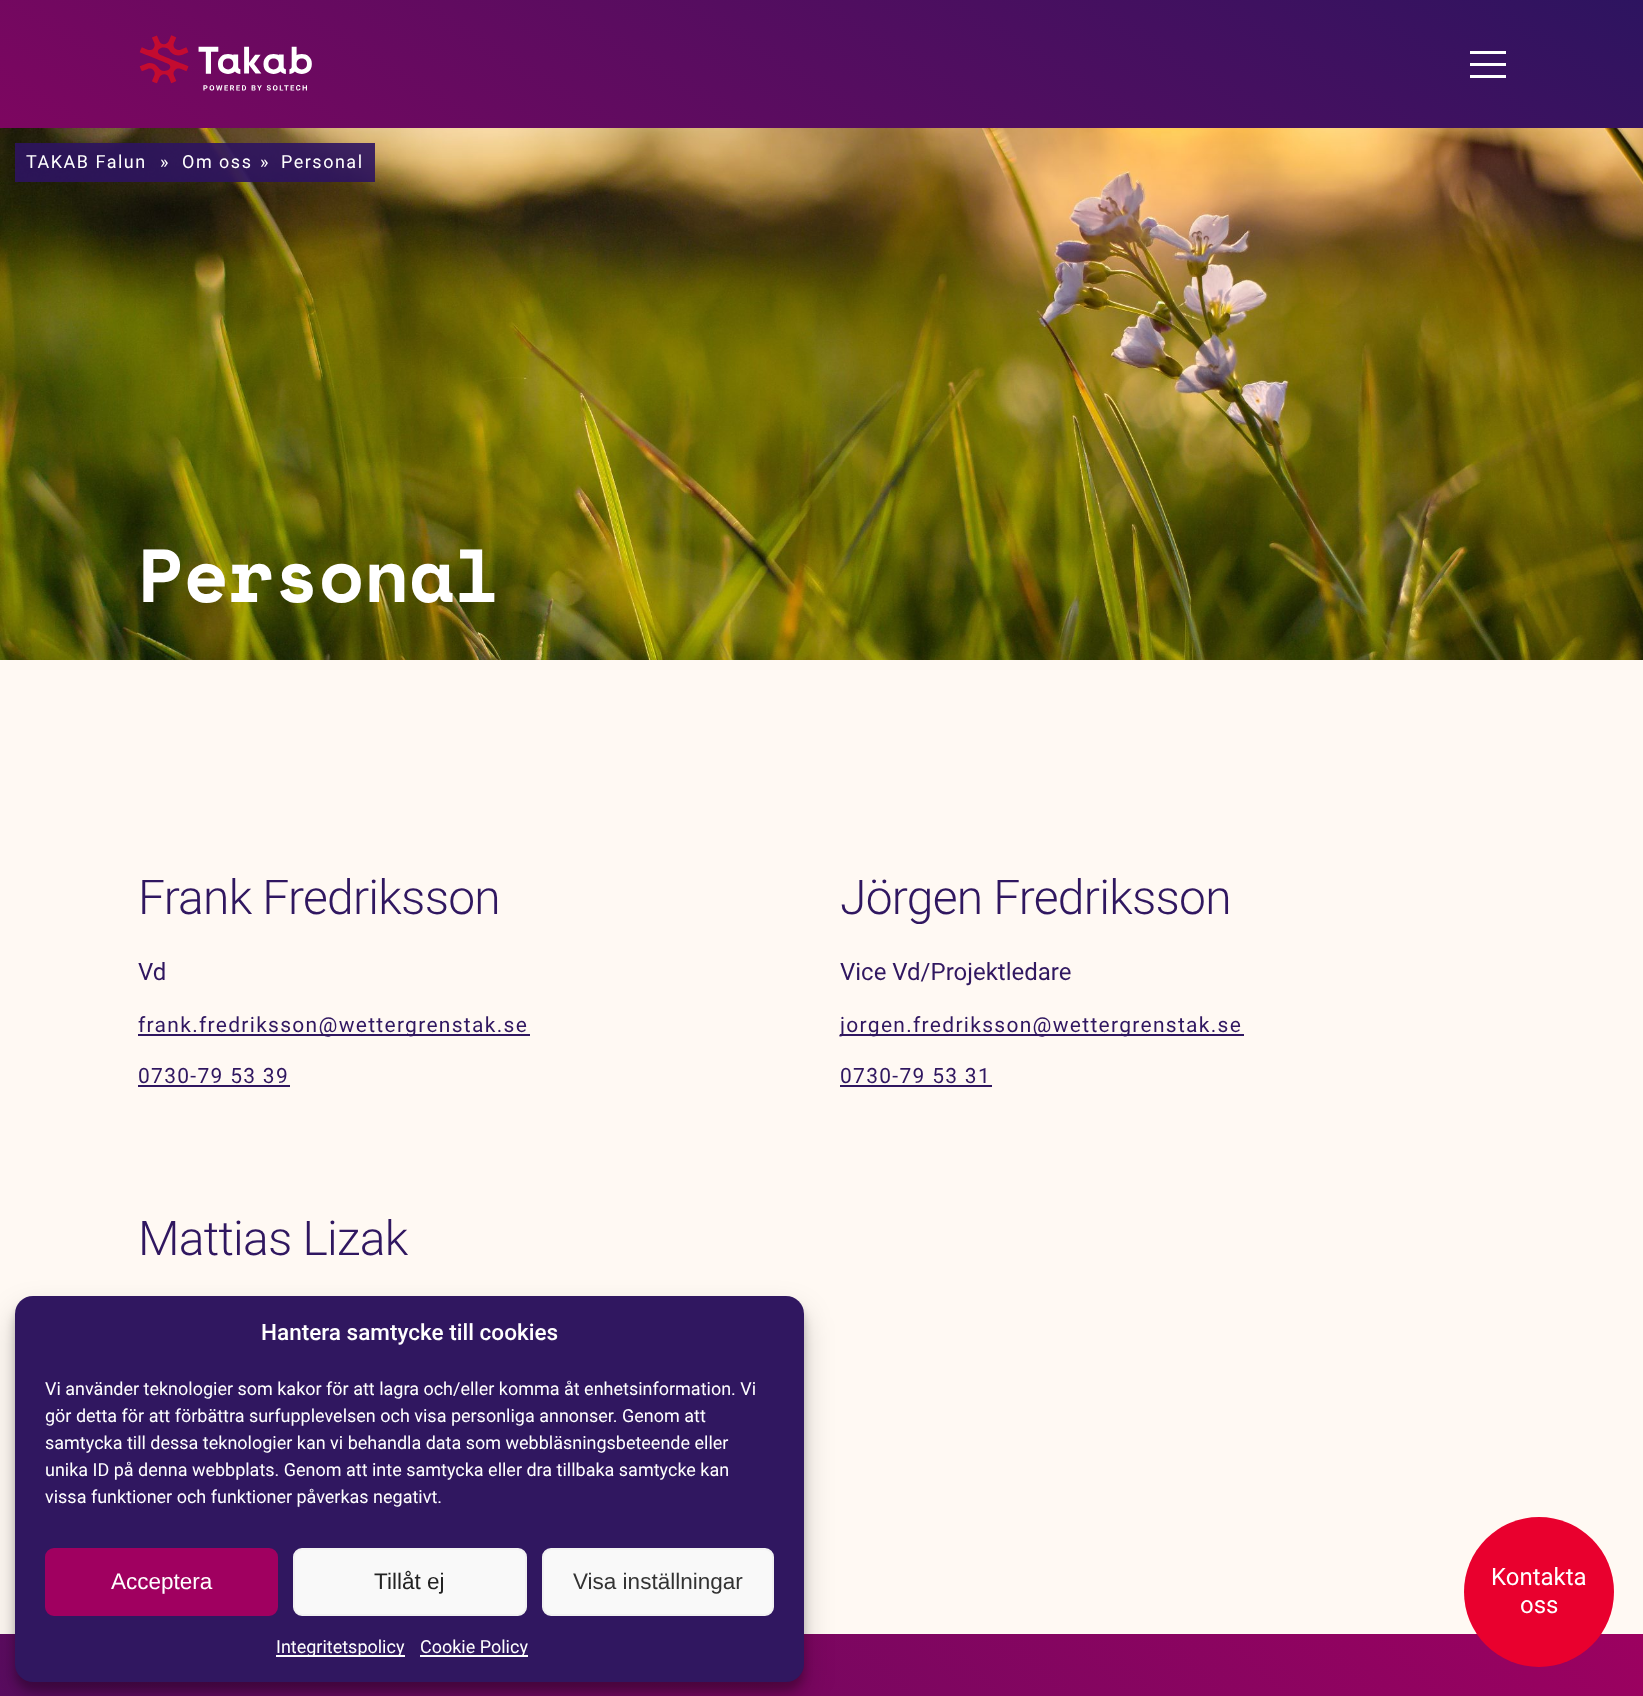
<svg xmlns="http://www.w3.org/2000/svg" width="1643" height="1696">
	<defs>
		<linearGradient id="g1" gradientUnits="userSpaceOnUse" x1="463" y1="903" x2="1181" y2="-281"><stop offset="0" stop-color="#A00060" /><stop offset="1" stop-color="#2D1460" /></linearGradient>
		<linearGradient id="g2" gradientUnits="userSpaceOnUse" x1="105" y1="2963" x2="1539" y2="1529"><stop offset="0" stop-color="#2D1461" /><stop offset="1" stop-color="#9C0160" /></linearGradient>
	</defs>
	<rect width="100%" height="100%" fill="#FFF9F3" />
	<rect x="0" y="0" width="1643" height="128" fill="url(#g1)" />
	<image x="139" y="35" width="173" height="56" href="assets/img1.png" />
	<rect x="1470" y="51" width="36" height="3" fill="#FFFFFF" />
	<rect x="1470" y="63" width="36" height="3" fill="#FFFFFF" />
	<rect x="1470" y="75" width="36" height="3" fill="#FFFFFF" />
	<image x="0" y="128" width="1643" height="532" href="assets/img2.png" />
	<rect x="15" y="143" width="360" height="39" fill="#2D1460" fill-opacity="0.9" />
	<text x="26" y="168" font-family="Roboto" font-size="18" letter-spacing="1.5" fill="#FFFFFF">TAKAB Falun</text>
	<text x="160" y="168" font-family="Roboto" font-size="18" fill="#FFFFFF">»</text>
	<text x="182" y="168" font-family="Roboto" font-size="18" letter-spacing="1.5" fill="#FFFFFF">Om oss</text>
	<text x="260" y="168" font-family="Roboto" font-size="18" fill="#FFFFFF">»</text>
	<text x="281" y="168" font-family="Roboto" font-size="18" letter-spacing="1.5" fill="#FFFFFF">Personal</text>
	<text x="138" y="602" font-family="Space Mono" font-size="75" font-weight="700" letter-spacing="-0.75" fill="#FFFFFF">Personal</text>
	<text x="138" y="914" font-family="Roboto" font-size="48" font-weight="300" letter-spacing="-0.75" fill="#301760">Frank Fredriksson</text>
	<text x="138" y="980" font-family="Roboto" font-size="24" fill="#301760">Vd</text>
	<rect x="138" y="1034" width="392" height="2" fill="#301760" />
	<g font-family="Roboto" font-size="21" letter-spacing="1.3" fill="#301760">
		<text x="138" y="1032">frank.fredriksson@wettergrenstak.se</text>
		<text x="138" y="1083">0730-79 53 39</text>
	</g>
	<rect x="138" y="1085" width="152" height="2" fill="#301760" />
	<text x="840" y="914" font-family="Roboto" font-size="48" font-weight="300" letter-spacing="-0.75" fill="#301760">Jörgen Fredriksson</text>
	<text x="840" y="980" font-family="Roboto" font-size="24" fill="#301760">Vice Vd/Projektledare</text>
	<rect x="840" y="1034" width="404" height="2" fill="#301760" />
	<g font-family="Roboto" font-size="21" letter-spacing="1.3" fill="#301760">
		<text x="840" y="1032">jorgen.fredriksson@wettergrenstak.se</text>
		<text x="840" y="1083">0730-79 53 31</text>
	</g>
	<rect x="840" y="1085" width="152" height="2" fill="#301760" />
	<text x="138" y="1255" font-family="Roboto" font-size="48" font-weight="300" letter-spacing="-0.75" fill="#301760">Mattias Lizak</text>
	<rect x="0" y="1634" width="1643" height="62" fill="url(#g2)" />
	<rect x="15" y="1305" width="789" height="386" rx="18" fill="#000000" fill-opacity="0.23" filter="blur(4.5px)" />
	<rect x="15" y="1311" width="789" height="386" rx="18" fill="#000000" fill-opacity="0.19" filter="blur(15px)" />
	<rect x="15" y="1296" width="789" height="386" rx="18" fill="#301760" />
	<text x="261" y="1340" font-family="Roboto" font-size="22.5" font-weight="500" fill="#FFFFFF">Hantera samtycke till cookies</text>
	<g font-family="Roboto" font-size="18" fill="#FFFFFF">
		<text x="45" y="1395">Vi använder teknologier som kakor för att lagra och/eller komma åt enhetsinformation. Vi</text>
		<text x="45" y="1422">gör detta för att förbättra surfupplevelsen och visa personliga annonser. Genom att</text>
		<text x="45" y="1449">samtycka till dessa teknologier kan vi behandla data som webbläsningsbeteende eller</text>
		<text x="45" y="1476">unika ID på denna webbplats. Genom att inte samtycka eller dra tillbaka samtycke kan</text>
		<text x="45" y="1503">vissa funktioner och funktioner påverkas negativt.</text>
	</g>
	<rect x="46" y="1549" width="231" height="66" rx="8" fill="#A00060" stroke="#A00060" stroke-width="2" />
	<text x="111" y="1589" font-family="Liberation Sans" font-size="22.5" fill="#FFFFFF">Acceptera</text>
	<rect x="294" y="1549" width="232" height="66" rx="8" fill="#F9F9F9" stroke="#F2F2F2" stroke-width="2" />
	<text x="374" y="1589" font-family="Liberation Sans" font-size="22.5" fill="#222222">Tillåt ej</text>
	<rect x="543" y="1549" width="230" height="66" rx="8" fill="#F9F9F9" stroke="#F2F2F2" stroke-width="2" />
	<text x="573" y="1589" font-family="Liberation Sans" font-size="22.5" fill="#333333">Visa inställningar</text>
	<rect x="276" y="1655" width="129" height="2" fill="#FFFFFF" />
	<text x="276" y="1653" font-family="Roboto" font-size="18" fill="#FFFFFF">Integritetspolicy</text>
	<rect x="420" y="1655" width="108" height="2" fill="#FFFFFF" />
	<text x="420" y="1653" font-family="Roboto" font-size="18" fill="#FFFFFF">Cookie Policy</text>
	<circle cx="1539" cy="1592" r="75" fill="#E9002E" />
	<g font-family="Roboto" font-size="24" fill="#FFFFFF">
		<text x="1491" y="1585">Kontakta</text>
		<text x="1520" y="1613">oss</text>
	</g>
</svg>
